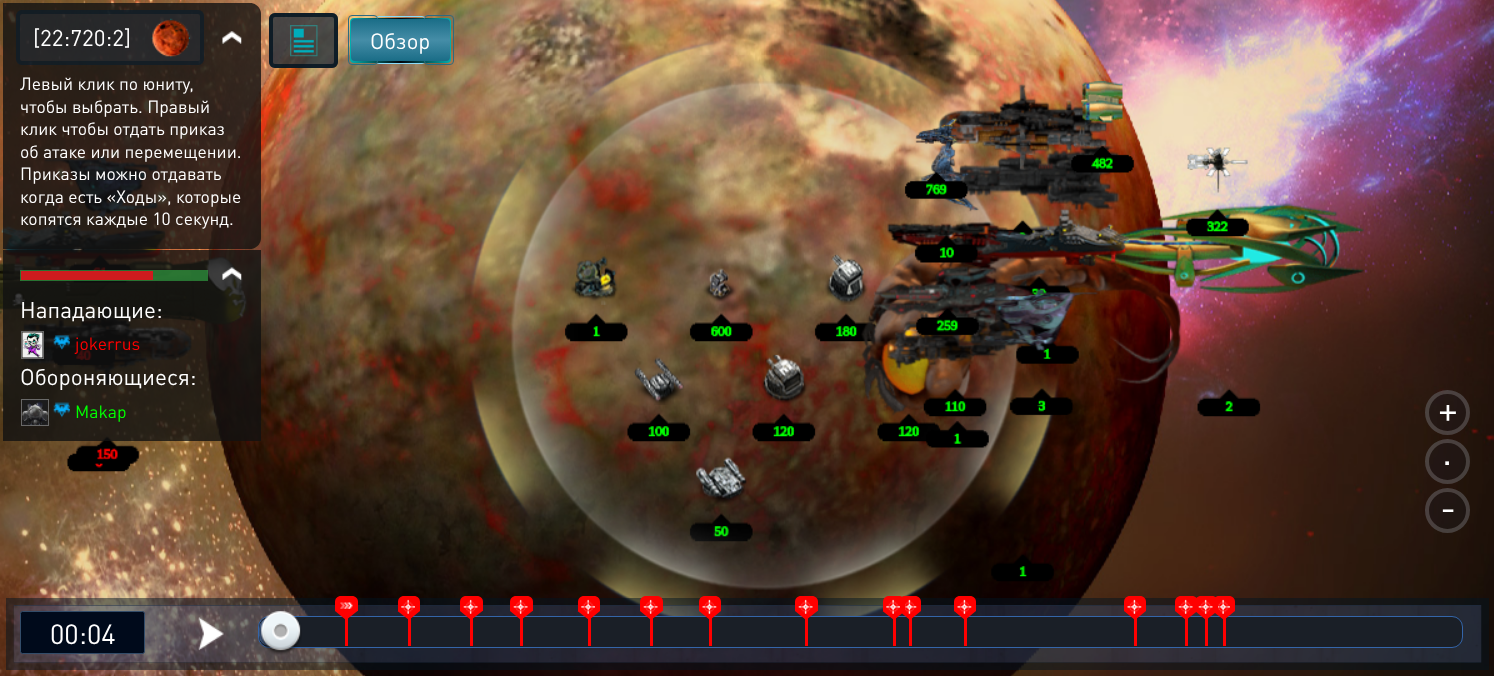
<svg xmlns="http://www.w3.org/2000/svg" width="1494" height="676">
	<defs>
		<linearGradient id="g1" gradientUnits="userSpaceOnUse" x1="350" y1="40" x2="451" y2="40"><stop offset="0" stop-color="#02AFAF" /><stop offset="0.5" stop-color="#00030A" /><stop offset="1" stop-color="#02AFAF" /></linearGradient>
		<linearGradient id="g2" gradientUnits="userSpaceOnUse" x1="401" y1="19" x2="401" y2="61"><stop offset="0" stop-color="#1A6D87" /><stop offset="0.5" stop-color="#458DA7" /><stop offset="1" stop-color="#1A6D87" /></linearGradient>
	</defs>
	<rect width="100%" height="100%" fill="#FFFFFF" />
	<image x="0" y="0" width="1494" height="676" href="assets/img1.png" />
	<path d="M3 3H250C256 3 261 8 261 14V238C261 244 256 249 250 249H3Z" fill="#111111" fill-opacity="0.8" />
	<rect x="16" y="10" width="188" height="55" rx="6" fill="#252F3B" fill-opacity="0.5" />
	<rect x="18" y="12" width="184" height="51" rx="4" fill="none" stroke="#01131F" stroke-opacity="0.5" stroke-width="4" />
	<text x="33" y="46" font-family="DIN" font-size="22.5" fill="#FFFFFF">[22:720:2]</text>
	<image x="151" y="18" width="39" height="40" href="assets/img2.png" />
	<image x="152" y="19" width="37" height="38" href="assets/img3.png" />
	<image x="222" y="31" width="20" height="13" href="assets/img4.png" />
	<g font-family="DIN" font-size="17.5" fill="#FFFFFF">
		<text x="20" y="90">Левый клик по юниту,</text>
		<text x="20" y="113">чтобы выбрать. Правый</text>
		<text x="20" y="135">клик чтобы отдать приказ</text>
		<text x="20" y="158">об атаке или перемещении.</text>
		<text x="20" y="180">Приказы можно отдавать</text>
		<text x="20" y="203">когда есть «Ходы», которые</text>
		<text x="20" y="225">копятся каждые 10 секунд.</text>
	</g>
	<rect x="3" y="250" width="258" height="191" fill="#111111" fill-opacity="0.8" />
	<rect x="20" y="270" width="188" height="11" fill="#3ACF51" fill-opacity="0.5" />
	<rect x="21" y="271" width="132" height="9" fill="#CE1B1E" />
	<image x="222" y="267" width="20" height="13" href="assets/img5.png" />
	<text x="20" y="318" font-family="DIN" font-size="22.5" fill="#FFFFFF">Нападающие:</text>
	<rect x="21.5" y="331.5" width="22" height="27" fill="none" stroke="#6F6F6F" stroke-opacity="0.93" />
	<image x="22" y="332" width="21" height="26" href="assets/img6.png" />
	<image x="53" y="335" width="17" height="15" href="assets/img7.png" />
	<text x="75" y="350" font-family="DIN" font-size="17.5" fill="#FF0000">jokerrus</text>
	<text x="20" y="385" font-family="DIN" font-size="22.5" fill="#FFFFFF">Обороняющиеся:</text>
	<rect x="21.5" y="399.5" width="27" height="26" fill="none" stroke="#6F6F6F" stroke-opacity="0.93" />
	<image x="22" y="400" width="26" height="25" href="assets/img8.png" />
	<image x="53" y="402" width="17" height="16" href="assets/img9.png" />
	<text x="75" y="418" font-family="DIN" font-size="17.5" fill="#00FF00">Makap</text>
	<rect x="269" y="13" width="69" height="55" rx="6" fill="#252F3B" fill-opacity="0.8" />
	<image x="290" y="25" width="28" height="32" href="assets/img10.png" />
	<rect x="271" y="15" width="65" height="51" rx="4" fill="none" stroke="#01131F" stroke-opacity="0.8" stroke-width="4" />
	<rect x="375.5" y="16.5" width="50" height="47" rx="3.5" fill="none" stroke="#89DCFA" />
	<rect x="350" y="18" width="101" height="45" rx="4" fill="url(#g1)" />
	<rect x="348.5" y="15.5" width="29" height="49" rx="3.5" fill="none" stroke="#2E6B80" />
	<rect x="424.5" y="15.5" width="29" height="49" rx="3.5" fill="none" stroke="#2E6B80" />
	<rect x="351" y="19" width="99" height="42" rx="4" fill="url(#g2)" />
	<text x="370" y="49" font-family="DIN" font-size="22" fill="#FFFFFF">Обзор</text>
	<circle cx="1447.5" cy="412.5" r="22.5" fill="#151F31" fill-opacity="0.2" />
	<circle cx="1447.5" cy="412.5" r="20.5" fill="none" stroke="#EBEBEB" stroke-opacity="0.2" stroke-width="4" />
	<text x="1438" y="423" font-family="DIN" font-size="38" fill="#FFFFFF">+</text>
	<circle cx="1447.5" cy="461.5" r="22.5" fill="#151F31" fill-opacity="0.2" />
	<circle cx="1447.5" cy="461.5" r="20.5" fill="none" stroke="#EBEBEB" stroke-opacity="0.2" stroke-width="4" />
	<text x="1442" y="465" font-family="DIN" font-size="38" fill="#FFFFFF">.</text>
	<circle cx="1447.5" cy="510.5" r="22.5" fill="#151F31" fill-opacity="0.2" />
	<circle cx="1447.5" cy="510.5" r="20.5" fill="none" stroke="#EBEBEB" stroke-opacity="0.2" stroke-width="4" />
	<text x="1440" y="521" font-family="DIN" font-size="38" fill="#FFFFFF">-</text>
	<rect x="10" y="602" width="1475" height="64" fill="none" stroke="#01131F" stroke-opacity="0.5" stroke-width="8" />
	<image x="13" y="605" width="1469" height="58" href="assets/img28.png" />
	<image x="198" y="617" width="26" height="34" href="assets/img11.png" />
	<rect x="258.5" y="616.5" width="1204" height="31" rx="10.5" fill="#1A1F27" stroke="#3465A9" />
	<rect x="259" y="618" width="21" height="28" rx="10.5" fill="#40597F" />
	<image x="259" y="611" width="43" height="44" href="assets/img12.png" />
	<rect x="345" y="618" width="3" height="28" fill="#FF0000" />
	<path d="M341 596H352C355.5 596 358 598.5 358 602V611H335V602C335 598.5 337.5 596 341 596Z" fill="#FF0000" />
	<image x="340" y="602" width="13" height="7" href="assets/img13.png" />
	<path d="M335 611H357.5L346 620Z" fill="#FF0000" />
	<rect x="408" y="618" width="3" height="28" fill="#FF0000" />
	<path d="M404 596H414C417.5 596 420 598.5 420 602V611H398V602C398 598.5 400.5 596 404 596Z" fill="#FF0000" />
	<path d="M397.5 611H420L409 620Z" fill="#FF0000" />
	<image x="401" y="599" width="14" height="15" href="assets/img14.png" />
	<rect x="470" y="618" width="3" height="28" fill="#FF0000" />
	<path d="M466 596H477C480.5 596 483 598.5 483 602V611H460V602C460 598.5 462.5 596 466 596Z" fill="#FF0000" />
	<path d="M460 611H482.5L471 620Z" fill="#FF0000" />
	<image x="463" y="599" width="15" height="15" href="assets/img15.png" />
	<rect x="520" y="618" width="3" height="28" fill="#FF0000" />
	<path d="M516 596H527C530.5 596 533 598.5 533 602V611H510V602C510 598.5 512.5 596 516 596Z" fill="#FF0000" />
	<path d="M510 611H532.5L521 620Z" fill="#FF0000" />
	<image x="513" y="599" width="15" height="15" href="assets/img16.png" />
	<rect x="588" y="618" width="3" height="28" fill="#FF0000" />
	<path d="M584 596H594C597.5 596 600 598.5 600 602V611H578V602C578 598.5 580.5 596 584 596Z" fill="#FF0000" />
	<path d="M577.5 611H600L589 620Z" fill="#FF0000" />
	<image x="581" y="599" width="14" height="15" href="assets/img17.png" />
	<rect x="650" y="618" width="3" height="28" fill="#FF0000" />
	<path d="M646 596H657C660.5 596 663 598.5 663 602V611H640V602C640 598.5 642.5 596 646 596Z" fill="#FF0000" />
	<path d="M640 611H662.5L651 620Z" fill="#FF0000" />
	<image x="643" y="599" width="15" height="15" href="assets/img18.png" />
	<rect x="709" y="618" width="3" height="28" fill="#FF0000" />
	<path d="M705 596H715C718.5 596 721 598.5 721 602V611H699V602C699 598.5 701.5 596 705 596Z" fill="#FF0000" />
	<path d="M699 611H721L710 620Z" fill="#FF0000" />
	<image x="702" y="599" width="15" height="15" href="assets/img19.png" />
	<rect x="805" y="618" width="3" height="28" fill="#FF0000" />
	<path d="M801 596H812C815.5 596 818 598.5 818 602V611H795V602C795 598.5 797.5 596 801 596Z" fill="#FF0000" />
	<path d="M795 611H817.5L806 620Z" fill="#FF0000" />
	<image x="798" y="599" width="15" height="15" href="assets/img20.png" />
	<rect x="893" y="618" width="3" height="28" fill="#FF0000" />
	<path d="M905 596H915C918.5 596 921 598.5 921 602V611H899V602C899 598.5 901.5 596 905 596Z" fill="#FF0000" />
	<path d="M889 596H899C902.5 596 905 598.5 905 602V611H883V602C883 598.5 885.5 596 889 596Z" fill="#FF0000" />
	<rect x="909" y="618" width="3" height="28" fill="#FF0000" />
	<path d="M899 611H921L910 620Z" fill="#FF0000" />
	<path d="M882.5 611H905L894 620Z" fill="#FF0000" />
	<image x="886" y="599" width="14" height="15" href="assets/img21.png" />
	<image x="905" y="599" width="12" height="15" href="assets/img22.png" />
	<rect x="964" y="618" width="3" height="28" fill="#FF0000" />
	<path d="M960 596H970C973.5 596 976 598.5 976 602V611H954V602C954 598.5 956.5 596 960 596Z" fill="#FF0000" />
	<path d="M954 611H976L965 620Z" fill="#FF0000" />
	<image x="957" y="599" width="15" height="15" href="assets/img23.png" />
	<rect x="1134" y="618" width="3" height="28" fill="#FF0000" />
	<path d="M1130 596H1140C1143.5 596 1146 598.5 1146 602V611H1124V602C1124 598.5 1126.5 596 1130 596Z" fill="#FF0000" />
	<path d="M1124 611H1146L1135 620Z" fill="#FF0000" />
	<image x="1127" y="599" width="15" height="15" href="assets/img24.png" />
	<rect x="1185" y="618" width="3" height="28" fill="#FF0000" />
	<path d="M1219 596H1229C1232.5 596 1235 598.5 1235 602V611H1213V602C1213 598.5 1215.5 596 1219 596Z" fill="#FF0000" />
	<path d="M1201 596H1212C1215.5 596 1218 598.5 1218 602V611H1195V602C1195 598.5 1197.5 596 1201 596Z" fill="#FF0000" />
	<path d="M1181 596H1192C1195.5 596 1198 598.5 1198 602V611H1175V602C1175 598.5 1177.5 596 1181 596Z" fill="#FF0000" />
	<rect x="1205" y="618" width="3" height="28" fill="#FF0000" />
	<rect x="1223" y="618" width="3" height="28" fill="#FF0000" />
	<path d="M1212.5 611H1235L1224 620Z" fill="#FF0000" />
	<path d="M1195 611H1217.5L1206 620Z" fill="#FF0000" />
	<path d="M1175 611H1197.5L1186 620Z" fill="#FF0000" />
	<image x="1178" y="599" width="15" height="15" href="assets/img25.png" />
	<image x="1198" y="599" width="15" height="15" href="assets/img26.png" />
	<image x="1218" y="599" width="12" height="15" href="assets/img27.png" />
	<rect x="20.5" y="611.5" width="124" height="42" rx="2" fill="#000A1B" stroke="#324C69" />
	<text x="50" y="644" font-family="DIN" font-size="27.5" fill="#FFFFFF">00:04</text>
</svg>
